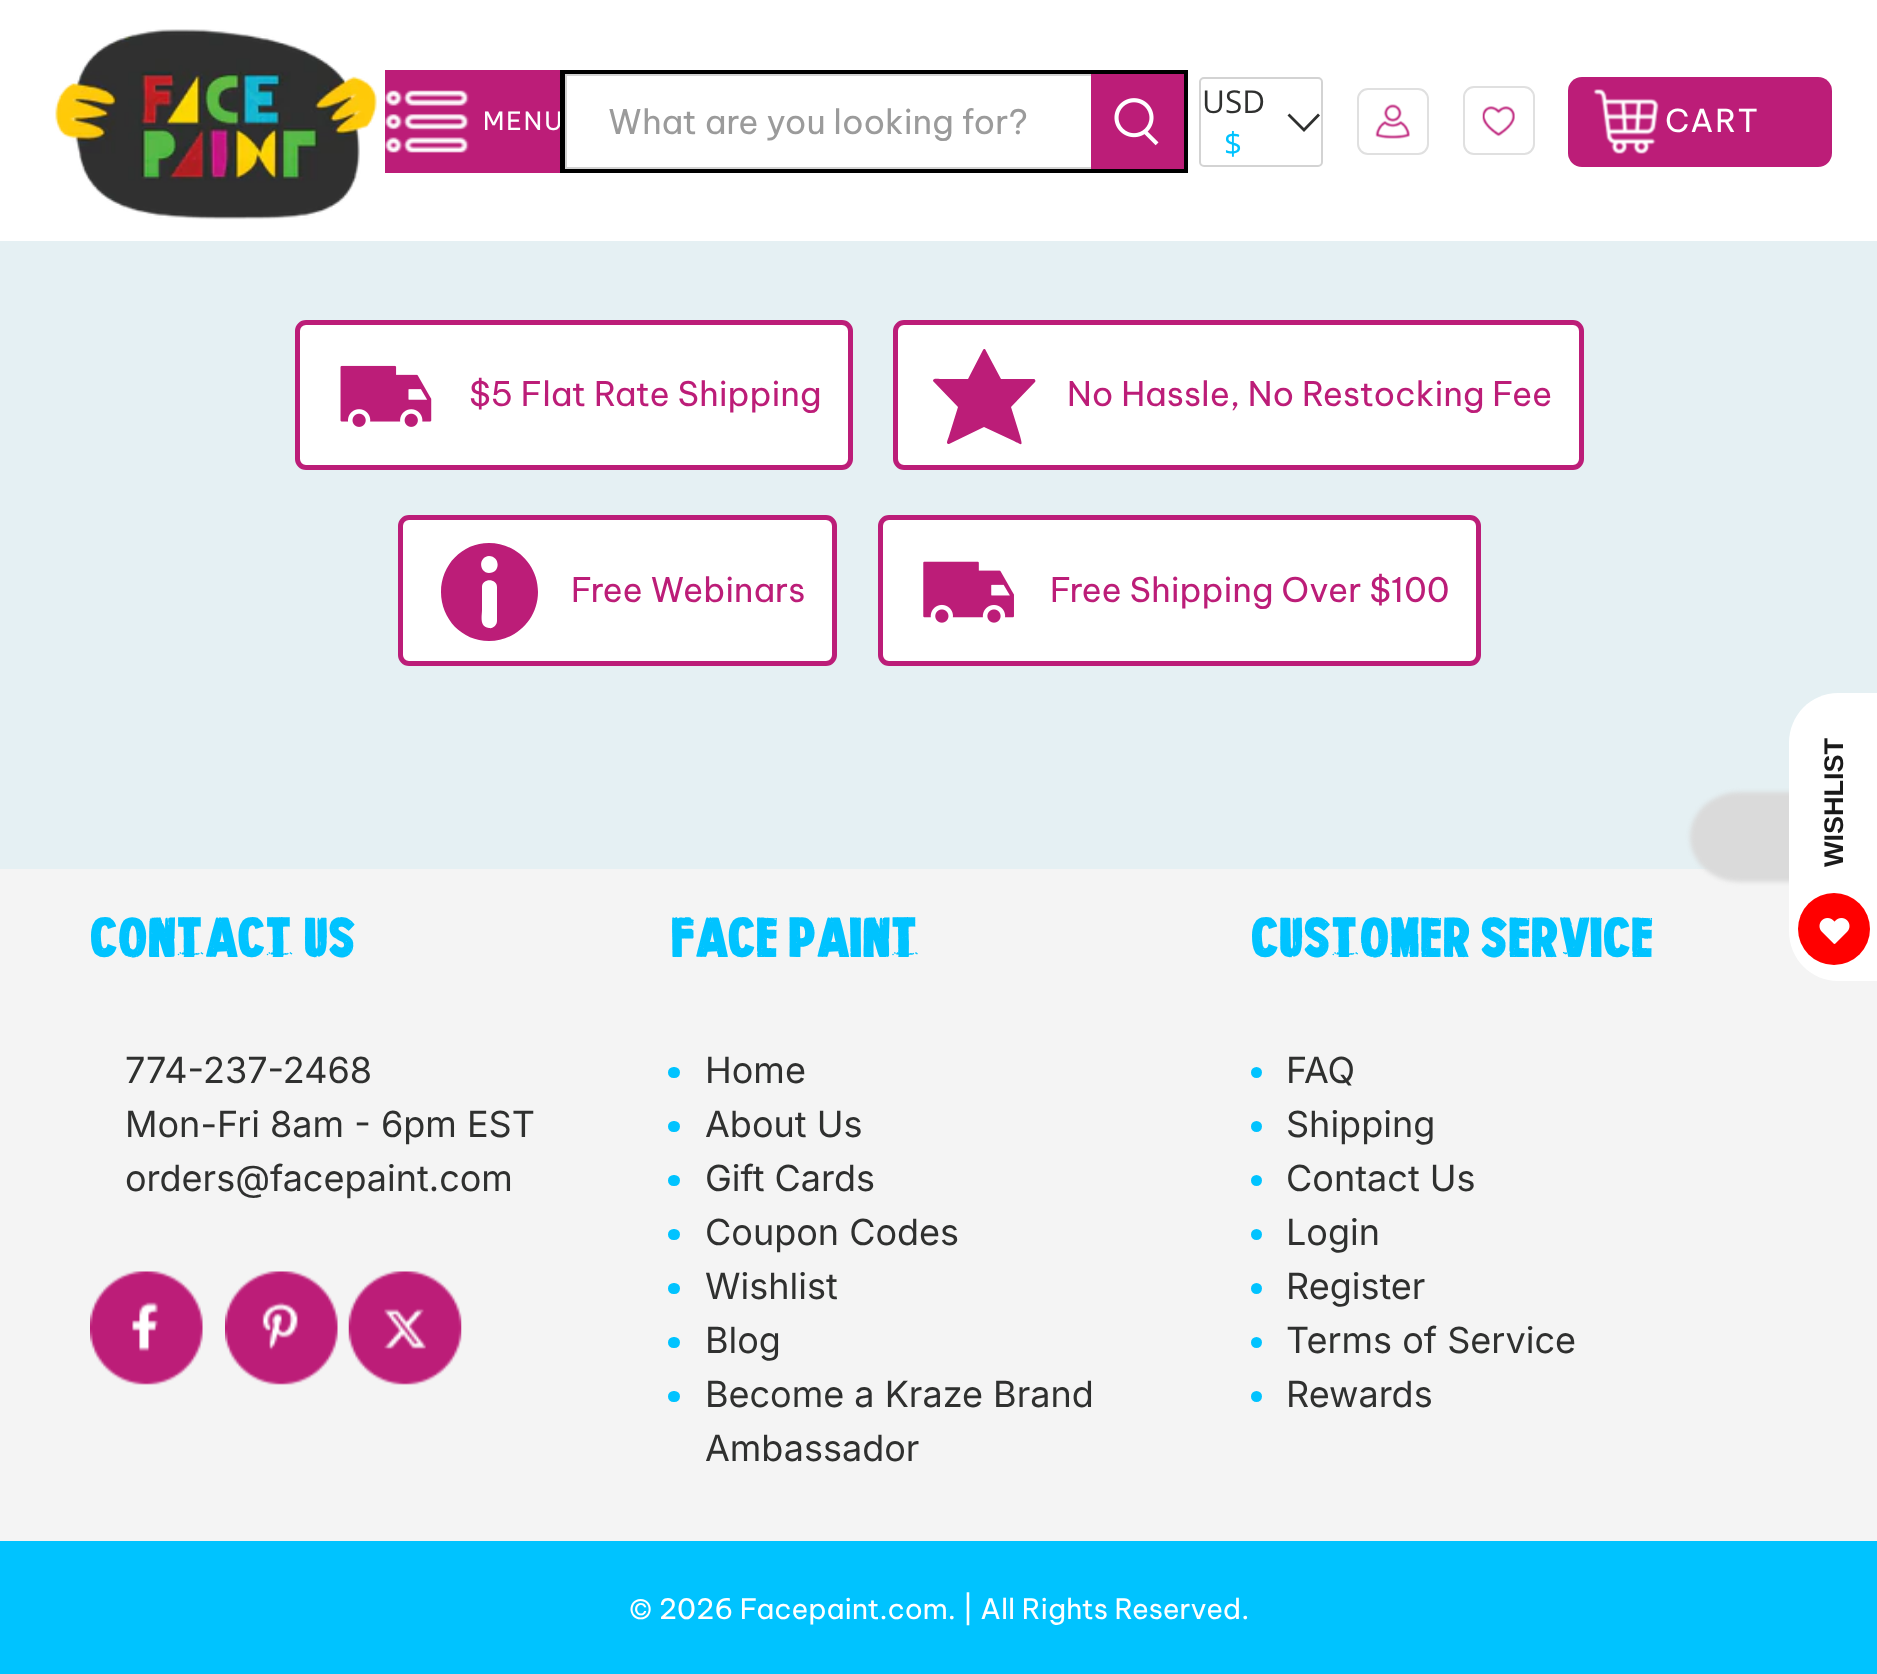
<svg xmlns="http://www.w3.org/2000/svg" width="1877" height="1674">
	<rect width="100%" height="100%" fill="#E5F0F3" />
	<rect x="0" y="0" width="1877" height="241" fill="#FFFFFF" />
	<image x="55" y="29" width="322" height="191" href="assets/img1.png" />
	<rect x="385" y="70" width="175" height="103" fill="#BC1D78" />
	<image x="385" y="90" width="84" height="63" href="assets/img2.png" />
	<text x="483" y="130" font-family="Be Vietnam Pro" font-size="25" letter-spacing="2" fill="#FFFFFF">MENU</text>
	<rect x="562.5" y="72.5" width="623" height="98" fill="none" stroke="#000000" stroke-width="5" />
	<rect x="566" y="75" width="527" height="93" fill="none" stroke="#D3D3D3" stroke-width="2" />
	<text x="608" y="134" font-family="Be Vietnam Pro" font-size="33.75" fill="#9B9B9B">What are you looking for?</text>
	<rect x="1091" y="74" width="93" height="95" fill="#BC1D78" />
	<image x="1114" y="98" width="45" height="48" href="assets/img3.png" />
	<rect x="1200" y="78" width="122" height="88" rx="4" fill="none" stroke="#D3D3D3" stroke-width="2" />
	<text x="1202" y="113" font-family="Open Sans" font-size="31.5" fill="#2F302F">USD</text>
	<text x="1224" y="155" font-family="Open Sans" font-size="31.5" fill="#00C3FF">$</text>
	<path d="M1304 132L1287.5 115.5L1289.5 113.5L1304 128L1318 113.5L1320 115.5Z" fill="#2F302F" />
	<rect x="1358" y="89" width="70" height="65" rx="10" fill="none" stroke="#E0E0E0" stroke-width="2" />
	<image x="1375" y="104" width="35" height="35" href="assets/img4.png" />
	<rect x="1464" y="87" width="70" height="67" rx="10" fill="none" stroke="#E0E0E0" stroke-width="2" />
	<image x="1482" y="106" width="33" height="31" href="assets/img5.png" />
	<rect x="1568" y="77" width="264" height="90" rx="14" fill="#BC1D78" />
	<image x="1593" y="89" width="66" height="65" href="assets/img6.png" />
	<text x="1665" y="132" font-family="Be Vietnam Pro" font-size="31.5" letter-spacing="2" fill="#FFFFFF">CART</text>
	<rect x="297.5" y="322.5" width="553" height="145" rx="8.5" fill="#FFFFFF" stroke="#BC1D78" stroke-width="5" />
	<image x="340" y="365" width="92" height="62" href="assets/img7.png" />
	<text x="469" y="406" font-family="Be Vietnam Pro" font-size="33.75" fill="#BC1D78">$5 Flat Rate Shipping</text>
	<rect x="895.5" y="322.5" width="686" height="145" rx="8.5" fill="#FFFFFF" stroke="#BC1D78" stroke-width="5" />
	<path d="M1035 382L1011 407L1020 436C1023 447 1022 445 1014 441L984 427L949 444C945 444 948 440 949 436L958 407L933 381C933 378 937 379 940 379H968L983 350C983 349 984 349 985 349L1001 379H1034C1035 379 1036 381 1035 382Z" fill="#BC1D78" />
	<text x="1067" y="406" font-family="Be Vietnam Pro" font-size="33.75" fill="#BC1D78">No Hassle, No Restocking Fee</text>
	<rect x="400.5" y="517.5" width="434" height="146" rx="8.5" fill="#FFFFFF" stroke="#BC1D78" stroke-width="5" />
	<path d="M489 543C462 543 441 565 441 592C441 619 462 641 489 641C516 641 538 619 538 592C538 565 516 543 489 543ZM497 621C497 625 493 629 489 628C479 627 482 616 482 610V587C482 578 497 578 497 587ZM489 573C479 573 478 557 489 556C500 556 501 573 489 573Z" fill="#BC1D78" />
	<text x="571" y="602" font-family="Be Vietnam Pro" font-size="33.75" fill="#BC1D78">Free Webinars</text>
	<rect x="880.5" y="517.5" width="598" height="146" rx="8.5" fill="#FFFFFF" stroke="#BC1D78" stroke-width="5" />
	<image x="923" y="561" width="91" height="62" href="assets/img8.png" />
	<text x="1050" y="602" font-family="Be Vietnam Pro" font-size="33.75" fill="#BC1D78">Free Shipping Over $100</text>
	<rect x="0" y="869" width="1877" height="672" fill="#F4F4F4" />
	<rect x="1690" y="792" width="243" height="90" rx="50" fill="#DADADA" filter="blur(2px)" />
	<path d="M1789 931V743C1789 715 1811 693 1838 693H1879V981H1838C1811 981 1789 959 1789 931Z" fill="#FFFFFF" />
	<text x="1843" y="867" transform="rotate(-90 1843 867)" font-family="Liberation Sans" font-size="27" font-weight="700" fill="#1A1A1A">WISHLIST</text>
	<circle cx="1834" cy="929" r="36" fill="#FF0000" />
	<image x="1819" y="918" width="31" height="26" href="assets/img9.png" />
	<text x="91" y="957" font-family="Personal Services" font-size="40.5" font-weight="700" fill="#00C3FF">CONTACT US</text>
	<g font-family="Inter" font-size="36" fill="#2F302F">
		<text x="125" y="1083">774-237-2468</text>
		<text x="125" y="1137">Mon-Fri 8am - 6pm EST</text>
		<text x="125" y="1191">orders@facepaint.com</text>
	</g>
	<image x="90" y="1271" width="113" height="114" href="assets/img10.png" />
	<image x="225" y="1271" width="113" height="114" href="assets/img11.png" />
	<image x="348" y="1271" width="114" height="114" href="assets/img12.png" />
	<text x="672" y="957" font-family="Personal Services" font-size="40.5" font-weight="700" fill="#00C3FF">FACE PAINT</text>
	<rect x="668" y="1067" width="12" height="11" rx="5.5" fill="#00C3FF" />
	<text x="705" y="1083" font-family="Inter" font-size="36" fill="#2F302F">Home</text>
	<rect x="668" y="1121" width="12" height="11" rx="5.5" fill="#00C3FF" />
	<text x="705" y="1137" font-family="Inter" font-size="36" fill="#2F302F">About Us</text>
	<rect x="668" y="1175" width="12" height="11" rx="5.5" fill="#00C3FF" />
	<text x="705" y="1191" font-family="Inter" font-size="36" fill="#2F302F">Gift Cards</text>
	<rect x="668" y="1229" width="12" height="11" rx="5.5" fill="#00C3FF" />
	<text x="705" y="1245" font-family="Inter" font-size="36" fill="#2F302F">Coupon Codes</text>
	<rect x="668" y="1283" width="12" height="11" rx="5.5" fill="#00C3FF" />
	<text x="705" y="1299" font-family="Inter" font-size="36" fill="#2F302F">Wishlist</text>
	<rect x="668" y="1337" width="12" height="11" rx="5.5" fill="#00C3FF" />
	<text x="705" y="1353" font-family="Inter" font-size="36" fill="#2F302F">Blog</text>
	<rect x="668" y="1391" width="12" height="11" rx="5.5" fill="#00C3FF" />
	<g font-family="Inter" font-size="36" fill="#2F302F">
		<text x="705" y="1407">Become a Kraze Brand</text>
		<text x="705" y="1461">Ambassador</text>
	</g>
	<text x="1252" y="957" font-family="Personal Services" font-size="40.5" font-weight="700" fill="#00C3FF">CUSTOMER SERVICE</text>
	<circle cx="1256.5" cy="1072.5" r="5.5" fill="#00C3FF" />
	<text x="1286" y="1083" font-family="Inter" font-size="36" fill="#2F302F">FAQ</text>
	<circle cx="1256.5" cy="1126.5" r="5.5" fill="#00C3FF" />
	<text x="1286" y="1137" font-family="Inter" font-size="36" fill="#2F302F">Shipping</text>
	<circle cx="1256.5" cy="1180.5" r="5.5" fill="#00C3FF" />
	<text x="1286" y="1191" font-family="Inter" font-size="36" fill="#2F302F">Contact Us</text>
	<circle cx="1256.5" cy="1234.5" r="5.5" fill="#00C3FF" />
	<text x="1286" y="1245" font-family="Inter" font-size="36" fill="#2F302F">Login</text>
	<circle cx="1256.5" cy="1288.5" r="5.5" fill="#00C3FF" />
	<text x="1286" y="1299" font-family="Inter" font-size="36" fill="#2F302F">Register</text>
	<circle cx="1256.5" cy="1342.5" r="5.5" fill="#00C3FF" />
	<text x="1286" y="1353" font-family="Inter" font-size="36" fill="#2F302F">Terms of Service</text>
	<circle cx="1256.5" cy="1396.5" r="5.5" fill="#00C3FF" />
	<text x="1286" y="1407" font-family="Inter" font-size="36" fill="#2F302F">Rewards</text>
	<rect x="0" y="1541" width="1877" height="133" fill="#00C3FF" />
	<text x="629" y="1619" font-family="Be Vietnam Pro" font-size="28.1" fill="#FFFFFF">© 2026 Facepaint.com. | All Rights Reserved.</text>
</svg>
